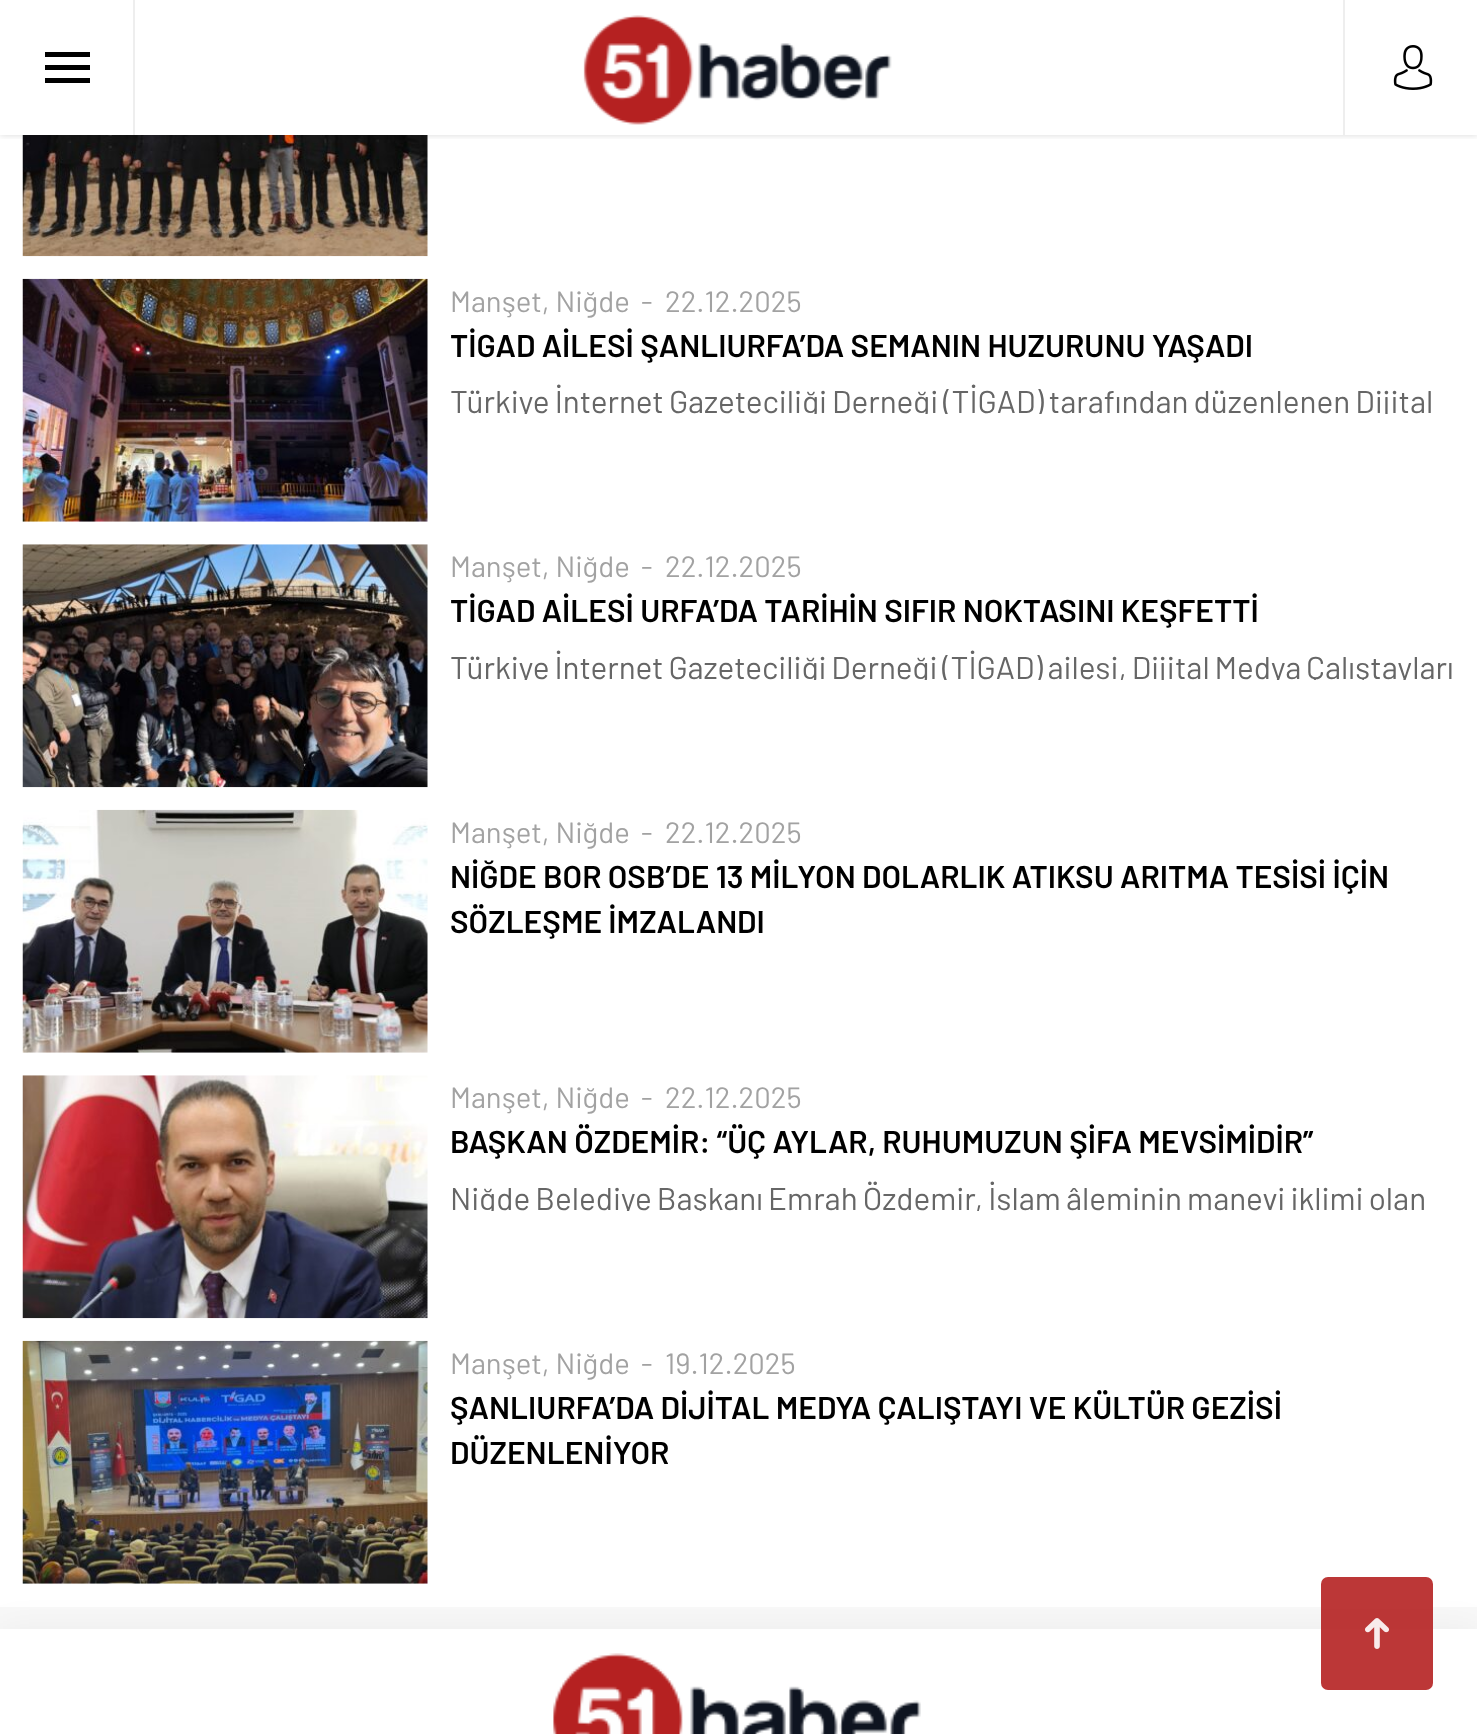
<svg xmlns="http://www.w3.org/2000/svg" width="1477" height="1734">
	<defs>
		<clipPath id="clip1"><rect x="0" y="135" width="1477" height="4" /></clipPath>
		<clipPath id="clip2"><rect x="450" y="279" width="1006" height="135" /></clipPath>
		<clipPath id="clip3"><rect x="450" y="545" width="1006" height="135" /></clipPath>
		<clipPath id="clip4"><rect x="450" y="1076" width="1006" height="135" /></clipPath>
	</defs>
	<rect width="100%" height="100%" fill="#F8F8F8" />
	<rect x="0" y="0" width="1477" height="1607" fill="#FFFFFF" />
	<image x="22" y="135" width="406" height="122" href="assets/img3.png" />
	<g clip-path="url(#clip1)">
		<rect x="0" y="0" width="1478" height="135" fill="#000000" fill-opacity="0.15" filter="blur(3.5px)" />
	</g>
	<image x="583" y="15" width="309" height="110" href="assets/img1.png" />
	<rect x="133" y="0" width="2" height="135" fill="#EEEEEE" />
	<path d="M45 83V78H90V83ZM45 70V65H90V70ZM45 52H90V57H45Z" fill="#000000" />
	<rect x="1343" y="0" width="2" height="135" fill="#EEEEEE" />
	<image x="1393" y="45" width="40" height="45" href="assets/img2.png" />
	<image x="22" y="278" width="406" height="244" href="assets/img4.png" />
	<g font-family="Barlow" font-size="29.25" fill="#A2A2A2">
		<text x="450" y="312">Manşet, Niğde</text>
		<text x="641" y="312">-</text>
		<text x="665" y="312">22.12.2025</text>
	</g>
	<text x="450" y="357" font-family="Barlow" font-size="31.5" font-weight="600" fill="#000000">TİGAD AİLESİ ŞANLIURFA’DA SEMANIN HUZURUNU YAŞADI</text>
	<g clip-path="url(#clip2)">
		<text x="450" y="413" word-spacing="-1.25" font-family="Barlow" font-size="31.5" fill="#666666">Türkiye İnternet Gazeteciliği Derneği (TİGAD) tarafından düzenlenen Dijital</text>
	</g>
	<image x="22" y="544" width="406" height="244" href="assets/img5.png" />
	<g font-family="Barlow" font-size="29.25" fill="#A2A2A2">
		<text x="450" y="577">Manşet, Niğde</text>
		<text x="641" y="577">-</text>
		<text x="665" y="577">22.12.2025</text>
	</g>
	<text x="450" y="622" font-family="Barlow" font-size="31.5" font-weight="600" fill="#000000">TİGAD AİLESİ URFA’DA TARİHİN SIFIR NOKTASINI KEŞFETTİ</text>
	<g clip-path="url(#clip3)">
		<text x="450" y="679" word-spacing="-1.5" font-family="Barlow" font-size="31.5" fill="#666666">Türkiye İnternet Gazeteciliği Derneği (TİGAD) ailesi, Dijital Medya Çalıştayları</text>
	</g>
	<image x="22" y="809" width="406" height="244" href="assets/img6.png" />
	<g font-family="Barlow" font-size="29.25" fill="#A2A2A2">
		<text x="450" y="843">Manşet, Niğde</text>
		<text x="641" y="843">-</text>
		<text x="665" y="843">22.12.2025</text>
	</g>
	<g font-family="Barlow" font-size="31.5" font-weight="600" fill="#000000">
		<text x="450" y="888">NİĞDE BOR OSB’DE 13 MİLYON DOLARLIK ATIKSU ARITMA TESİSİ İÇİN</text>
		<text x="450" y="933">SÖZLEŞME İMZALANDI</text>
	</g>
	<image x="22" y="1075" width="406" height="244" href="assets/img7.png" />
	<g font-family="Barlow" font-size="29.25" fill="#A2A2A2">
		<text x="450" y="1108">Manşet, Niğde</text>
		<text x="641" y="1108">-</text>
		<text x="665" y="1108">22.12.2025</text>
	</g>
	<text x="450" y="1153" font-family="Barlow" font-size="31.5" font-weight="600" fill="#000000">BAŞKAN ÖZDEMİR: “ÜÇ AYLAR, RUHUMUZUN ŞİFA MEVSİMİDİR”</text>
	<g clip-path="url(#clip4)">
		<text x="450" y="1210" word-spacing="-1.25" font-family="Barlow" font-size="31.5" fill="#666666">Niğde Belediye Başkanı Emrah Özdemir, İslam âleminin manevi iklimi olan</text>
	</g>
	<image x="22" y="1340" width="406" height="244" href="assets/img8.png" />
	<g font-family="Barlow" font-size="29.25" fill="#A2A2A2">
		<text x="450" y="1374">Manşet, Niğde</text>
		<text x="641" y="1374">-</text>
		<text x="665" y="1374">19.12.2025</text>
	</g>
	<g font-family="Barlow" font-size="31.5" font-weight="600" fill="#000000">
		<text x="450" y="1419">ŞANLIURFA’DA DİJİTAL MEDYA ÇALIŞTAYI VE KÜLTÜR GEZİSİ</text>
		<text x="450" y="1464">DÜZENLENİYOR</text>
	</g>
	<rect x="0" y="1629" width="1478" height="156" fill="#000000" fill-opacity="0.05" filter="blur(17px)" />
	<rect x="0" y="1629" width="1477" height="105" fill="#FFFFFF" />
	<image x="553" y="1653" width="368" height="81" href="assets/img9.png" />
	<rect x="1321" y="1577" width="112" height="113" rx="7" fill="#B52121" fill-opacity="0.9" />
	<image x="1365" y="1618" width="24" height="31" href="assets/img10.png" />
</svg>
